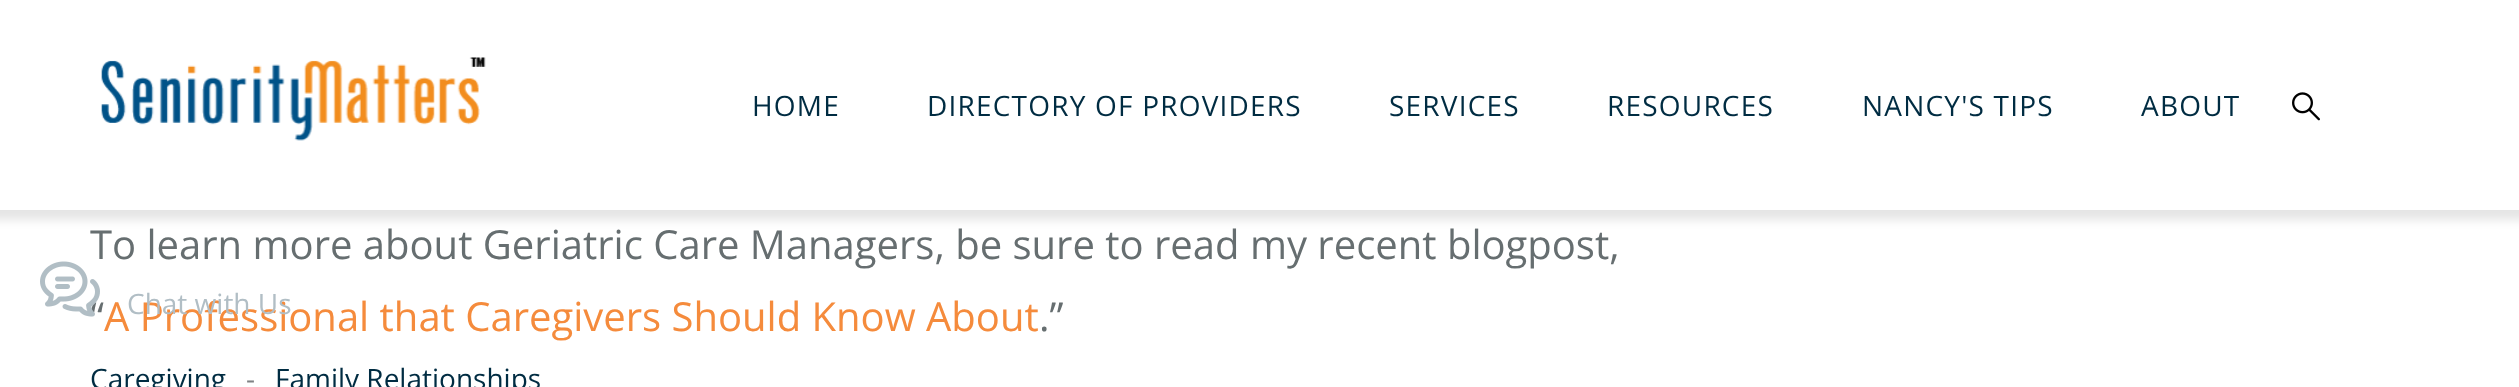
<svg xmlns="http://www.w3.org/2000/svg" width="2519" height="387">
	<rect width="100%" height="100%" fill="#FFFFFF" />
	<rect x="-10" y="-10" width="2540" height="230" fill="#000000" fill-opacity="0.1" filter="blur(5px)" />
	<rect x="0" y="0" width="2519" height="210" fill="#FFFFFF" />
	<image x="101" y="57" width="385" height="84" href="assets/img1.png" />
	<g font-family="Open Sans" font-size="28" letter-spacing="1.2" fill="#002C42">
		<text x="752" y="116">HOME</text>
		<text x="927" y="116">DIRECTORY OF PROVIDERS</text>
		<text x="1389" y="116">SERVICES</text>
		<text x="1607" y="116">RESOURCES</text>
		<text x="1862" y="116">NANCY'S TIPS</text>
		<text x="2141" y="116">ABOUT</text>
	</g>
	<image x="2292" y="92" width="28" height="29" href="assets/img2.png" />
	<g font-family="Open Sans" font-size="40" fill="#666E70">
		<text x="90" y="259">To learn more about Geriatric Care Managers, be sure to read my recent blogpost,</text>
		<text x="90" y="331">“</text>
	</g>
	<text x="104" y="331" font-family="Open Sans" font-size="40" fill="#F58B3C">A Professional that Caregivers Should Know About</text>
	<text x="1039" y="331" font-family="Open Sans" font-size="40" fill="#666E70">.”</text>
	<text x="90" y="389" font-family="Open Sans" font-size="28" fill="#002C42">Caregiving</text>
	<text x="246" y="389" font-family="Open Sans" font-size="28" fill="#7F8284">-</text>
	<text x="275" y="389" font-family="Open Sans" font-size="28" fill="#002C42">Family Relationships</text>
	<image x="40" y="261" width="60" height="56" href="assets/img3.png" />
	<text x="127" y="314" font-family="Open Sans" font-size="28" fill="#B1BEC5">Chat with Us</text>
</svg>
